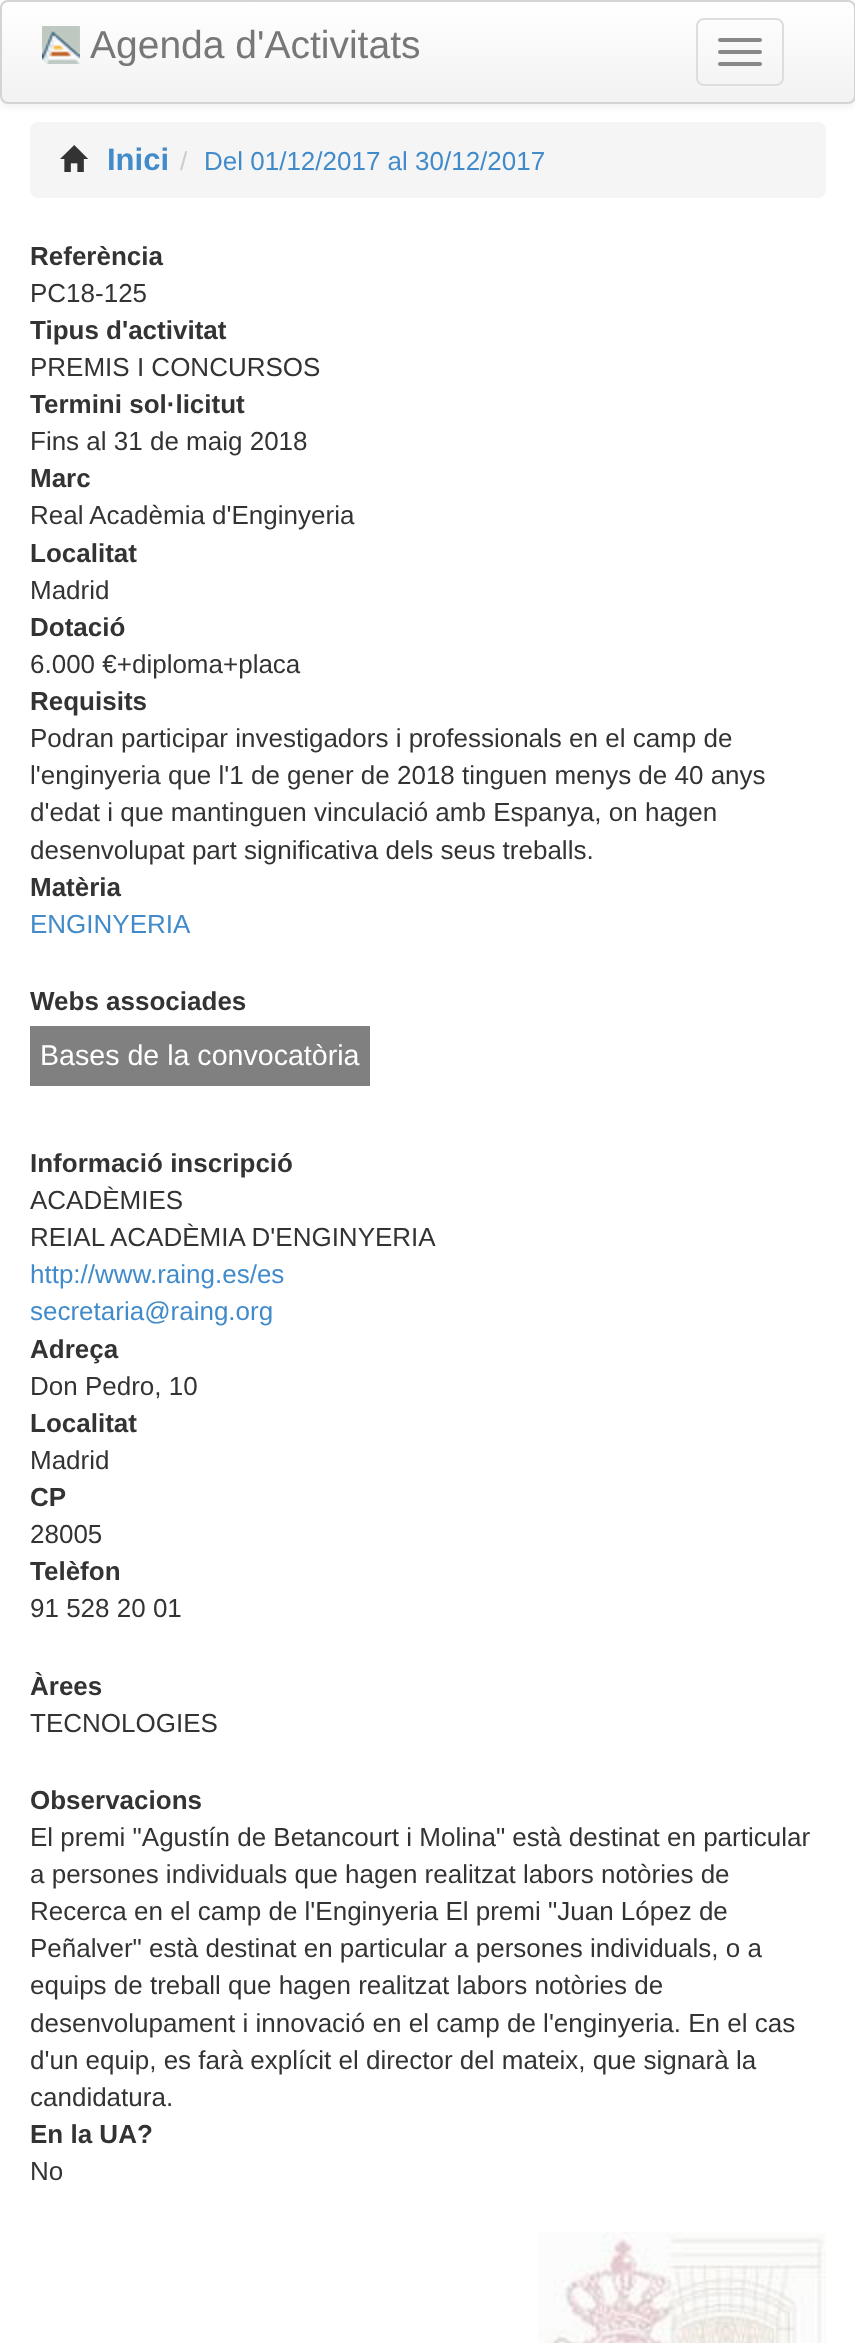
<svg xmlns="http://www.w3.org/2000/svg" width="855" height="2343">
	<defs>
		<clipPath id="clip1"><rect x="0" y="0" width="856" height="104" rx="8" /></clipPath>
		<linearGradient id="g1" gradientUnits="userSpaceOnUse" x1="428" y1="2" x2="428" y2="102"><stop offset="0" stop-color="#FFFFFF" /><stop offset="1" stop-color="#F2F2F2" /></linearGradient>
	</defs>
	<rect width="100%" height="100%" fill="#FFFFFF" />
	<rect x="0" y="2" width="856" height="104" rx="8" fill="#000000" fill-opacity="0.07" filter="blur(4px)" />
	<g clip-path="url(#clip1)">
		<rect x="0" y="2" width="855" height="100" fill="url(#g1)" />
	</g>
	<rect x="1" y="1" width="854" height="102" rx="7" fill="none" stroke="#D4D4D4" stroke-width="2" />
	<image x="42" y="26" width="38" height="38" href="assets/img1.png" />
	<text x="90" y="58" font-family="Liberation Sans" font-size="39" fill="#777777">Agenda d'Activitats</text>
	<rect x="697" y="19" width="86" height="66" rx="7" fill="none" stroke="#DDDDDD" stroke-width="2" />
	<rect x="718" y="38" width="44" height="4" rx="2" fill="#888888" />
	<rect x="718" y="50" width="44" height="4" rx="2" fill="#888888" />
	<rect x="718" y="62" width="44" height="4" rx="2" fill="#888888" />
	<rect x="30" y="122" width="796" height="76" rx="8" fill="#F5F5F5" />
	<image x="60" y="145" width="29" height="27" href="assets/img2.png" />
	<text x="107" y="170" font-family="Liberation Sans" font-size="31" font-weight="700" fill="#428BCA">Inici</text>
	<text x="180" y="170" font-family="Liberation Sans" font-size="26" fill="#CCCCCC">/</text>
	<text x="204" y="170" font-family="Liberation Sans" font-size="26" fill="#428BCA">Del 01/12/2017 al 30/12/2017</text>
	<text x="30" y="265" font-family="Liberation Sans" font-size="26" font-weight="700" fill="#333333">Referència</text>
	<text x="30" y="302" font-family="Liberation Sans" font-size="26" fill="#333333">PC18-125</text>
	<text x="30" y="339" font-family="Liberation Sans" font-size="26" font-weight="700" fill="#333333">Tipus d'activitat</text>
	<text x="30" y="376" font-family="Liberation Sans" font-size="26" fill="#333333">PREMIS I CONCURSOS</text>
	<text x="30" y="413" font-family="Liberation Sans" font-size="26" font-weight="700" fill="#333333">Termini sol·licitut</text>
	<text x="30" y="450" font-family="Liberation Sans" font-size="26" fill="#333333">Fins al 31 de maig 2018</text>
	<text x="30" y="487" font-family="Liberation Sans" font-size="26" font-weight="700" fill="#333333">Marc</text>
	<text x="30" y="524" font-family="Liberation Sans" font-size="26" fill="#333333">Real Acadèmia d'Enginyeria</text>
	<text x="30" y="562" font-family="Liberation Sans" font-size="26" font-weight="700" fill="#333333">Localitat</text>
	<text x="30" y="599" font-family="Liberation Sans" font-size="26" fill="#333333">Madrid</text>
	<text x="30" y="636" font-family="Liberation Sans" font-size="26" font-weight="700" fill="#333333">Dotació</text>
	<text x="30" y="673" font-family="Liberation Sans" font-size="26" fill="#333333">6.000 €+diploma+placa</text>
	<text x="30" y="710" font-family="Liberation Sans" font-size="26" font-weight="700" fill="#333333">Requisits</text>
	<g font-family="Liberation Sans" font-size="26" fill="#333333">
		<text x="30" y="747">Podran participar investigadors i professionals en el camp de</text>
		<text x="30" y="784">l'enginyeria que l'1 de gener de 2018 tinguen menys de 40 anys</text>
		<text x="30" y="821">d'edat i que mantinguen vinculació amb Espanya, on hagen</text>
		<text x="30" y="859">desenvolupat part significativa dels seus treballs.</text>
	</g>
	<text x="30" y="896" font-family="Liberation Sans" font-size="26" font-weight="700" fill="#333333">Matèria</text>
	<text x="30" y="933" font-family="Liberation Sans" font-size="26" fill="#428BCA">ENGINYERIA</text>
	<text x="30" y="1010" font-family="Liberation Sans" font-size="26" font-weight="700" fill="#333333">Webs associades</text>
	<rect x="30" y="1026" width="340" height="60" fill="#808080" />
	<text x="40" y="1065" font-family="Liberation Sans" font-size="28.6" fill="#FFFFFF">Bases de la convocatòria</text>
	<text x="30" y="1172" font-family="Liberation Sans" font-size="26" font-weight="700" fill="#333333">Informació inscripció</text>
	<g font-family="Liberation Sans" font-size="26" fill="#333333">
		<text x="30" y="1209">ACADÈMIES</text>
		<text x="30" y="1246">REIAL ACADÈMIA D'ENGINYERIA</text>
	</g>
	<g font-family="Liberation Sans" font-size="26" fill="#428BCA">
		<text x="30" y="1283">http://www.raing.es/es</text>
		<text x="30" y="1320">secretaria@raing.org</text>
	</g>
	<text x="30" y="1358" font-family="Liberation Sans" font-size="26" font-weight="700" fill="#333333">Adreça</text>
	<text x="30" y="1395" font-family="Liberation Sans" font-size="26" fill="#333333">Don Pedro, 10</text>
	<text x="30" y="1432" font-family="Liberation Sans" font-size="26" font-weight="700" fill="#333333">Localitat</text>
	<text x="30" y="1469" font-family="Liberation Sans" font-size="26" fill="#333333">Madrid</text>
	<text x="30" y="1506" font-family="Liberation Sans" font-size="26" font-weight="700" fill="#333333">CP</text>
	<text x="30" y="1543" font-family="Liberation Sans" font-size="26" fill="#333333">28005</text>
	<text x="30" y="1580" font-family="Liberation Sans" font-size="26" font-weight="700" fill="#333333">Telèfon</text>
	<text x="30" y="1617" font-family="Liberation Sans" font-size="26" fill="#333333">91 528 20 01</text>
	<text x="30" y="1695" font-family="Liberation Sans" font-size="26" font-weight="700" fill="#333333">Àrees</text>
	<text x="30" y="1732" font-family="Liberation Sans" font-size="26" fill="#333333">TECNOLOGIES</text>
	<text x="30" y="1809" font-family="Liberation Sans" font-size="26" font-weight="700" fill="#333333">Observacions</text>
	<g font-family="Liberation Sans" font-size="26" fill="#333333">
		<text x="30" y="1846">El premi "Agustín de Betancourt i Molina" està destinat en particular</text>
		<text x="30" y="1883">a persones individuals que hagen realitzat labors notòries de</text>
		<text x="30" y="1920">Recerca en el camp de l'Enginyeria El premi "Juan López de</text>
		<text x="30" y="1957">Peñalver" està destinat en particular a persones individuals, o a</text>
		<text x="30" y="1994">equips de treball que hagen realitzat labors notòries de</text>
		<text x="30" y="2032">desenvolupament i innovació en el camp de l'enginyeria. En el cas</text>
		<text x="30" y="2069">d'un equip, es farà explícit el director del mateix, que signarà la</text>
		<text x="30" y="2106">candidatura.</text>
	</g>
	<text x="30" y="2143" font-family="Liberation Sans" font-size="26" font-weight="700" fill="#333333">En la UA?</text>
	<text x="30" y="2180" font-family="Liberation Sans" font-size="26" fill="#333333">No</text>
	<image x="538" y="2232" width="288" height="111" href="assets/img3.png" />
</svg>
